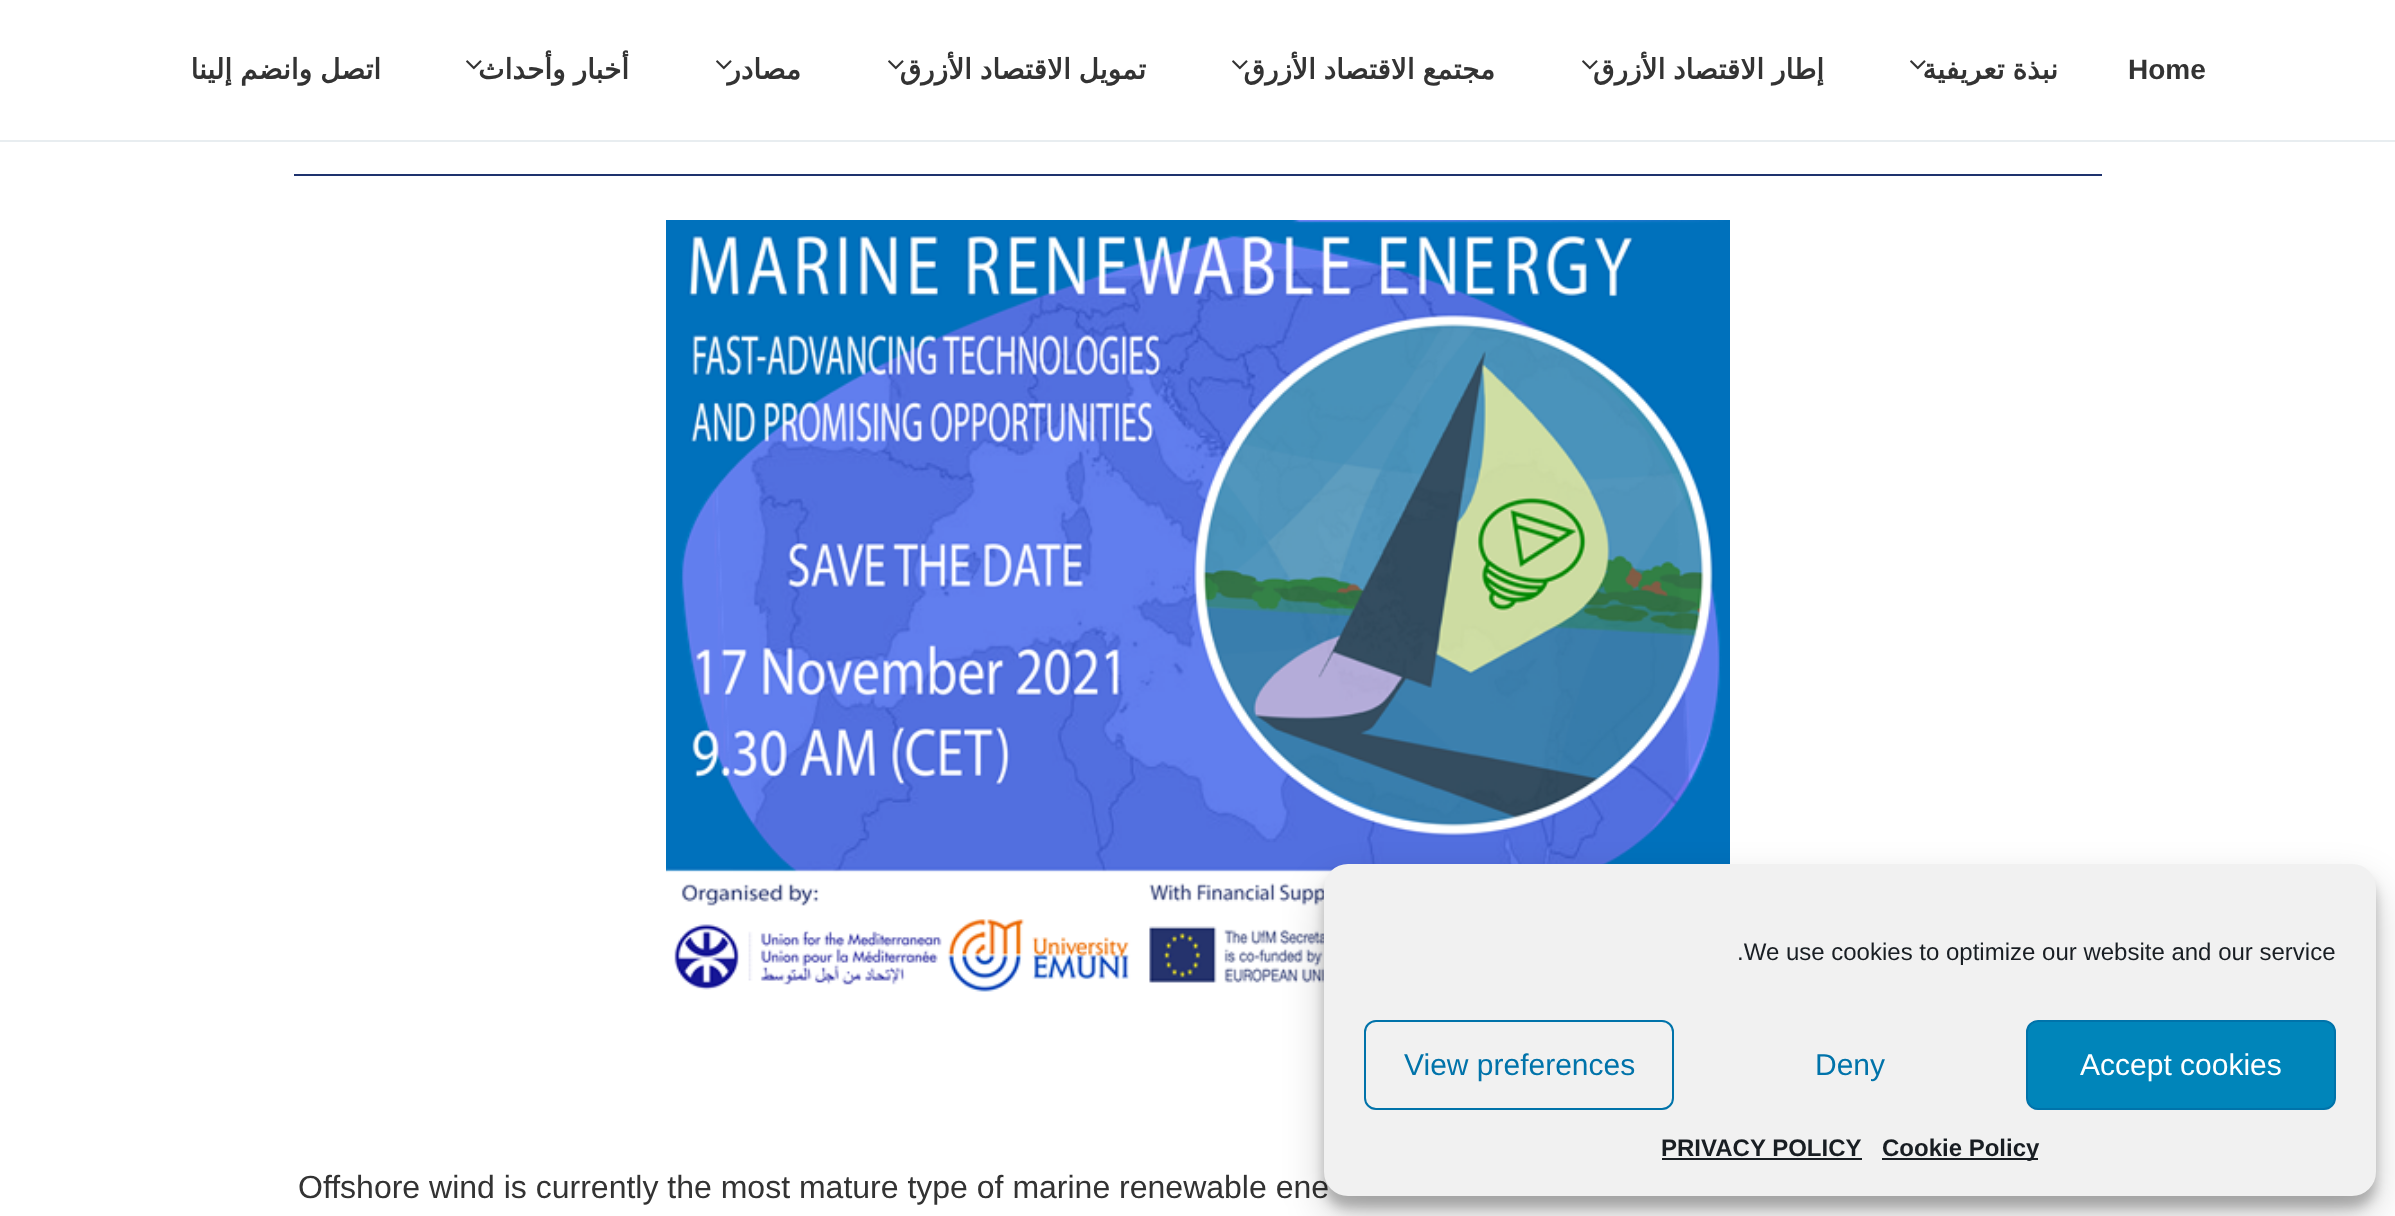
<svg xmlns="http://www.w3.org/2000/svg" width="2395" height="1216">
	<rect width="100%" height="100%" fill="#FFFFFF" />
	<rect x="0" y="140" width="2395" height="2" fill="#E8EDF0" />
	<g font-family="DejaVu Sans" font-size="28" font-weight="700" direction="rtl" fill="#333333">
		<text x="381" y="79" word-spacing="-1">اتصل وانضم إلينا</text>
		<text x="629" y="79" word-spacing="-1">أخبار وأحداث</text>
	</g>
	<image x="466" y="60" width="16" height="10" href="assets/img1.png" />
	<text x="801" y="79" font-family="DejaVu Sans" font-size="28" font-weight="700" direction="rtl" fill="#333333">مصادر</text>
	<image x="716" y="60" width="16" height="10" href="assets/img1.png" />
	<text x="1146" y="79" word-spacing="-1" font-family="DejaVu Sans" font-size="28" font-weight="700" direction="rtl" fill="#333333">تمويل الاقتصاد الأزرق</text>
	<image x="888" y="60" width="16" height="10" href="assets/img1.png" />
	<text x="1495" y="79" word-spacing="-1" font-family="DejaVu Sans" font-size="28" font-weight="700" direction="rtl" fill="#333333">مجتمع الاقتصاد الأزرق</text>
	<image x="1232" y="60" width="16" height="10" href="assets/img1.png" />
	<text x="1824" y="79" word-spacing="-1" font-family="DejaVu Sans" font-size="28" font-weight="700" direction="rtl" fill="#333333">إطار الاقتصاد الأزرق</text>
	<image x="1582" y="60" width="16" height="10" href="assets/img1.png" />
	<text x="2058" y="79" word-spacing="-1" font-family="DejaVu Sans" font-size="28" font-weight="700" direction="rtl" fill="#333333">نبذة تعريفية</text>
	<image x="1910" y="60" width="16" height="10" href="assets/img1.png" />
	<text x="2128" y="79" font-family="Liberation Sans" font-size="28" font-weight="700" fill="#333333">Home</text>
	<rect x="294" y="174" width="1808" height="2" fill="#1E326E" />
	<image x="666" y="220" width="1064" height="782" href="assets/img2.png" />
	<text x="298" y="1198" font-family="Liberation Sans" font-size="32" fill="#333333">Offshore wind is currently the most mature type of marine renewable ene</text>
	<rect x="1324" y="876" width="1052" height="332" rx="24" fill="#000000" fill-opacity="0.23" filter="blur(6px)" />
	<rect x="1324" y="884" width="1052" height="332" rx="24" fill="#000000" fill-opacity="0.19" filter="blur(20px)" />
	<rect x="1324" y="864" width="1052" height="332" rx="24" fill="#F1F1F1" />
	<text x="1737" y="960" font-family="Liberation Sans" font-size="24" fill="#191E23">.We use cookies to optimize our website and our service</text>
	<rect x="1365" y="1021" width="308" height="88" rx="11" fill="none" stroke="#0073AA" stroke-width="2" />
	<g font-family="Liberation Sans" font-size="30" fill="#0073AA">
		<text x="1404" y="1075">View preferences</text>
		<text x="1815" y="1075">Deny</text>
	</g>
	<rect x="2027" y="1021" width="308" height="88" rx="11" fill="#0085BA" stroke="#0073AA" stroke-width="2" />
	<text x="2080" y="1075" font-family="Liberation Sans" font-size="30" fill="#FFFFFF">Accept cookies</text>
	<text x="1661" y="1156" font-family="Liberation Sans" font-size="24" font-weight="700" fill="#191E23">PRIVACY POLICY</text>
	<rect x="1662" y="1158" width="200" height="2" fill="#191E23" />
	<rect x="1882" y="1158" width="156" height="2" fill="#191E23" />
	<text x="1882" y="1156" font-family="Liberation Sans" font-size="24" font-weight="700" fill="#191E23">Cookie Policy</text>
</svg>
